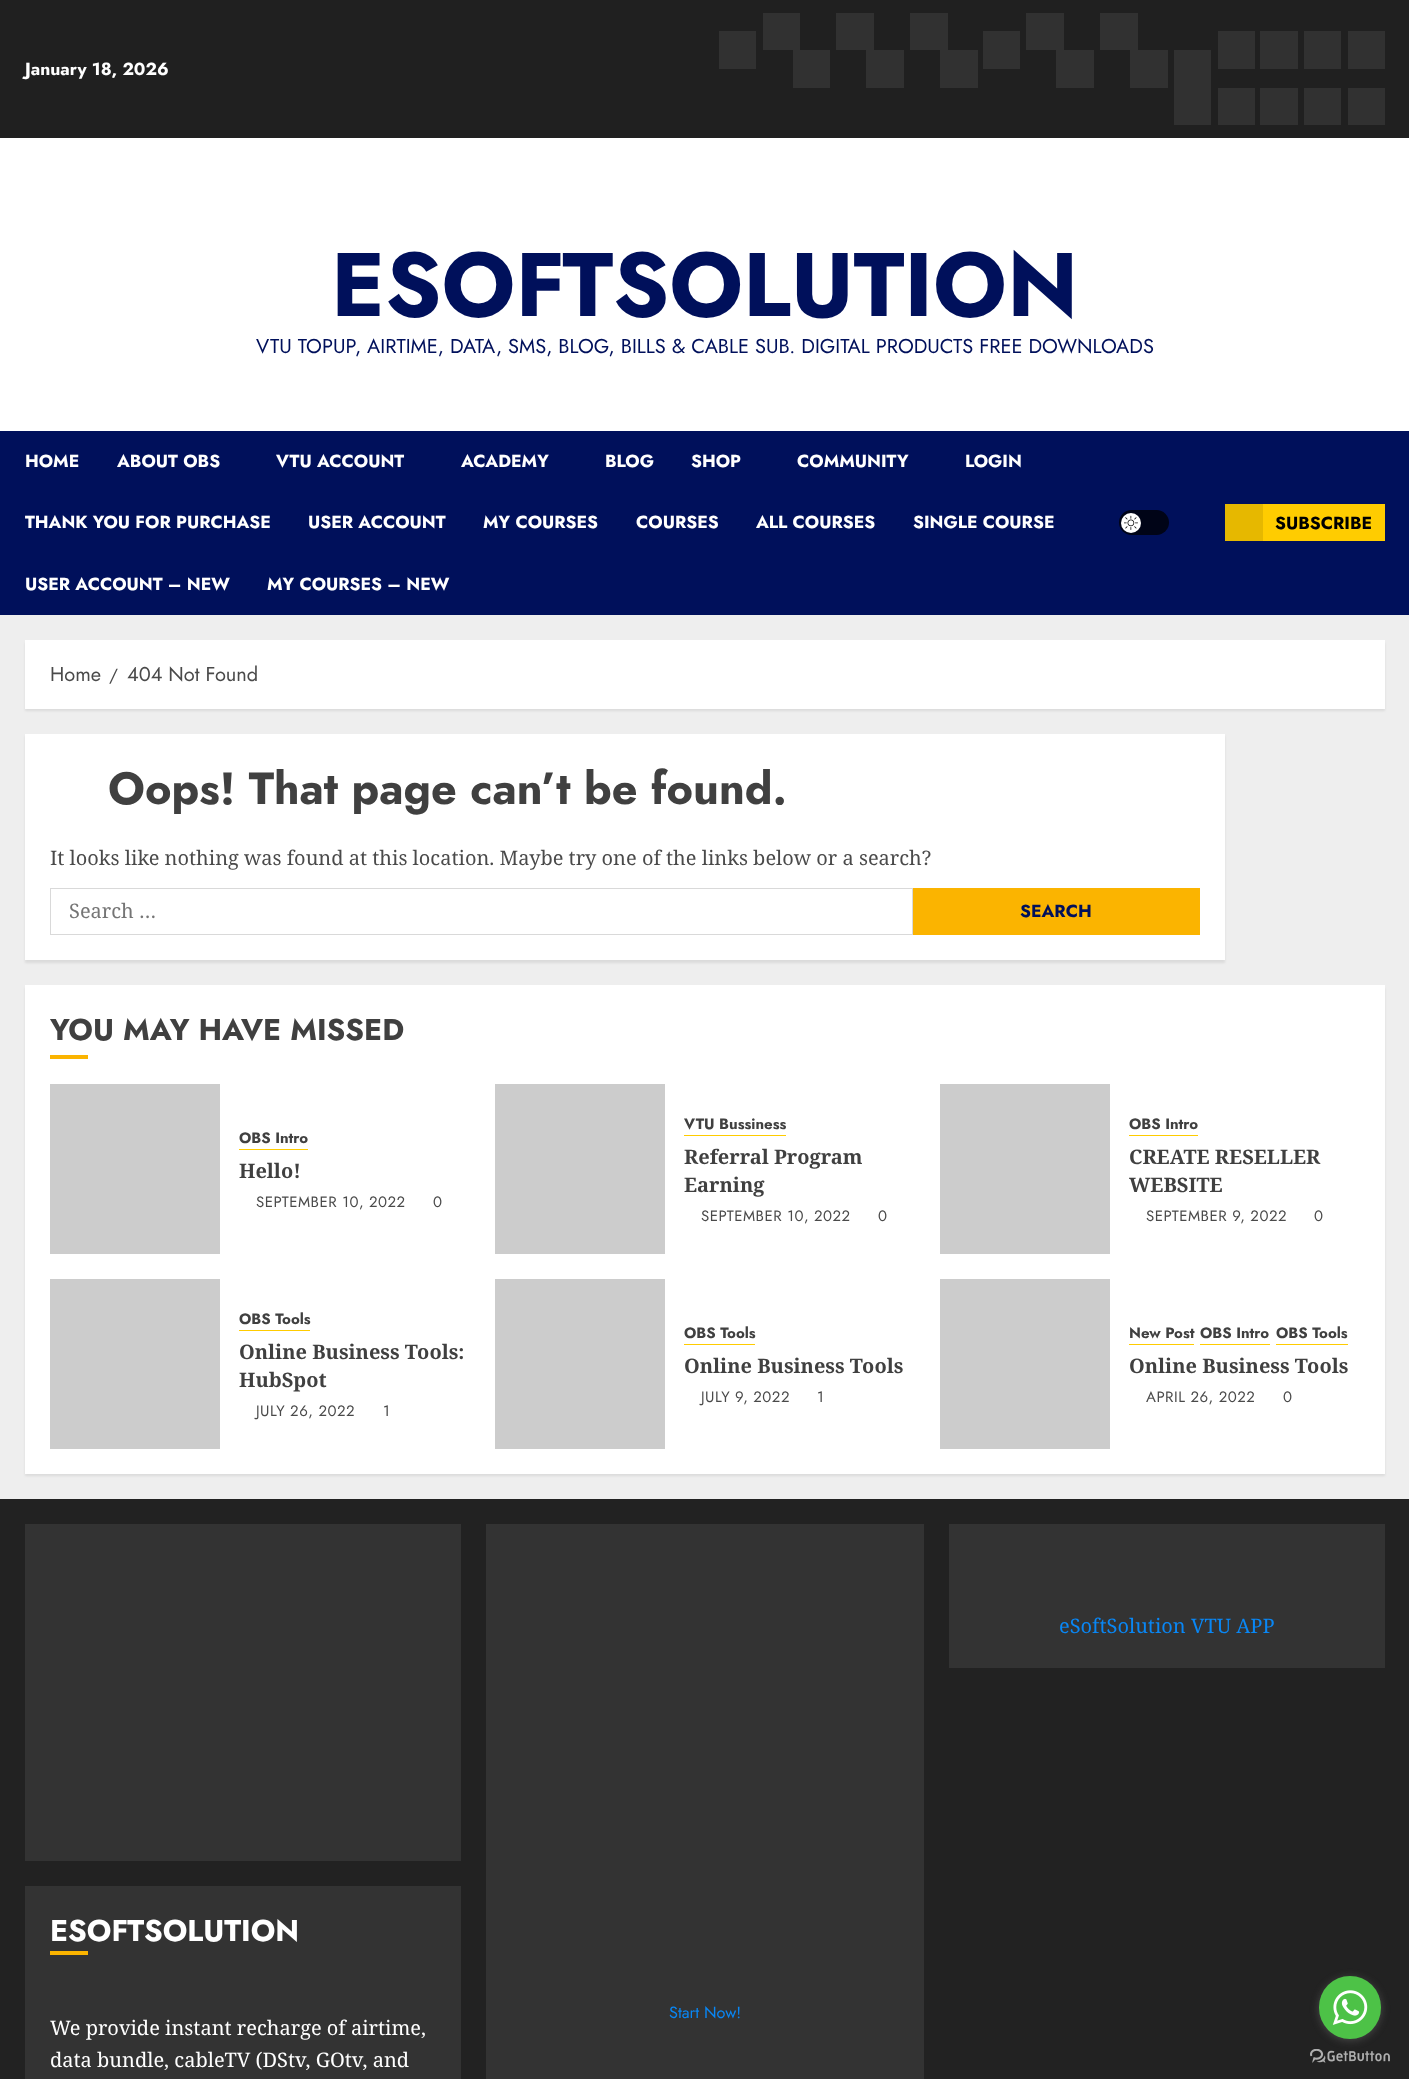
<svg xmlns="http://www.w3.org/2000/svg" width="1409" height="2079">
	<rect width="100%" height="100%" fill="#EEEEEE" />
	<rect x="0" y="0" width="1409" height="138" fill="#202020" />
	<text x="25" y="75" font-family="Jost" font-size="17.5" font-weight="700" fill="#FFFFFF">January 18, 2026</text>
	<rect x="719" y="31" width="37" height="38" fill="#313131" />
	<rect x="763" y="13" width="37" height="37" fill="#313131" />
	<rect x="793" y="50" width="37" height="38" fill="#313131" />
	<rect x="836" y="13" width="38" height="37" fill="#313131" />
	<rect x="866" y="50" width="38" height="38" fill="#313131" />
	<rect x="910" y="13" width="38" height="37" fill="#313131" />
	<rect x="940" y="50" width="38" height="38" fill="#313131" />
	<rect x="983" y="31" width="37" height="38" fill="#313131" />
	<rect x="1026" y="13" width="38" height="37" fill="#313131" />
	<rect x="1056" y="50" width="38" height="38" fill="#313131" />
	<rect x="1100" y="13" width="38" height="37" fill="#313131" />
	<rect x="1130" y="50" width="38" height="38" fill="#313131" />
	<rect x="1174" y="50" width="37" height="75" fill="#313131" />
	<rect x="1218" y="31" width="37" height="38" fill="#313131" />
	<rect x="1260" y="31" width="38" height="38" fill="#313131" />
	<rect x="1304" y="31" width="37" height="38" fill="#313131" />
	<rect x="1348" y="31" width="37" height="38" fill="#313131" />
	<rect x="1218" y="88" width="37" height="37" fill="#313131" />
	<rect x="1260" y="88" width="38" height="37" fill="#313131" />
	<rect x="1304" y="88" width="37" height="37" fill="#313131" />
	<rect x="1348" y="88" width="37" height="37" fill="#313131" />
	<rect x="0" y="138" width="1409" height="293" fill="#FFFFFF" />
	<text x="331" y="316" font-family="Jost" font-size="90" font-weight="700" fill="#00105B">ESOFTSOLUTION</text>
	<text x="256" y="353" font-family="Jost" font-size="20" fill="#00105B">VTU TOPUP, AIRTIME, DATA, SMS, BLOG, BILLS &amp; CABLE SUB. DIGITAL PRODUCTS FREE DOWNLOADS</text>
	<rect x="0" y="431" width="1409" height="184" fill="#00105B" />
	<g font-family="Jost" font-size="17.5" font-weight="700" fill="#FFFFFF">
		<text x="25" y="467">HOME</text>
		<text x="117" y="467">ABOUT OBS</text>
		<text x="276" y="467">VTU ACCOUNT</text>
		<text x="461" y="467">ACADEMY</text>
		<text x="605" y="467">BLOG</text>
		<text x="691" y="467">SHOP</text>
		<text x="797" y="467">COMMUNITY</text>
		<text x="965" y="467">LOGIN</text>
		<text x="25" y="528">THANK YOU FOR PURCHASE</text>
		<text x="308" y="528">USER ACCOUNT</text>
		<text x="483" y="528">MY COURSES</text>
		<text x="636" y="528">COURSES</text>
		<text x="756" y="528">ALL COURSES</text>
		<text x="913" y="528">SINGLE COURSE</text>
		<text x="25" y="590">USER ACCOUNT – NEW</text>
		<text x="267" y="590">MY COURSES – NEW</text>
	</g>
	<rect x="1119" y="510" width="50" height="25" rx="12.5" fill="#000417" />
	<circle cx="1131" cy="523" r="10" fill="#FFFFFF" />
	<image x="1124" y="515" width="14" height="15" href="assets/img1.png" />
	<rect x="1263" y="504" width="122" height="37" fill="#FFCC00" />
	<rect x="1225" y="504" width="38" height="37" fill="#E6B800" />
	<text x="1275" y="529" font-family="Jost" font-size="17.5" font-weight="700" fill="#000000">SUBSCRIBE</text>
	<rect x="25" y="643" width="1360" height="68" fill="#000000" fill-opacity="0.08" filter="blur(1px)" />
	<rect x="25" y="640" width="1360" height="69" fill="#FFFFFF" />
	<text x="50" y="681" font-family="Jost" font-size="20" fill="#4A4A4A">Home</text>
	<text x="109" y="681" font-family="Jost" font-size="17.5" fill="#4A4A4A">/</text>
	<text x="127" y="681" font-family="Jost" font-size="20" fill="#4A4A4A">404 Not Found</text>
	<rect x="25" y="736" width="1200" height="227" fill="#000000" fill-opacity="0.08" filter="blur(1px)" />
	<rect x="25" y="734" width="1200" height="226" fill="#FFFFFF" />
	<text x="108" y="804" font-family="Jost" font-size="45" font-weight="700" fill="#404040">Oops! That page can’t be found.</text>
	<text x="50" y="865" font-family="Noto Serif" font-size="20" fill="#4A4A4A">It looks like nothing was found at this location. Maybe try one of the links below or a search?</text>
	<rect x="50.5" y="888.5" width="862" height="46" fill="none" stroke="#D9D9D9" />
	<text x="69" y="918" font-family="Noto Serif" font-size="20" fill="#757575">Search …</text>
	<rect x="913" y="888" width="287" height="47" fill="#FBB400" />
	<text x="1020" y="917" font-family="Jost" font-size="17.5" font-weight="700" fill="#00105B">SEARCH</text>
	<rect x="25" y="988" width="1360" height="488" fill="#000000" fill-opacity="0.08" filter="blur(1px)" />
	<rect x="25" y="985" width="1360" height="489" fill="#FFFFFF" />
	<text x="50" y="1040" font-family="Jost" font-size="30" font-weight="700" fill="#404040">YOU MAY HAVE MISSED</text>
	<rect x="50" y="1055" width="38" height="4" fill="#FBB400" />
	<rect x="50" y="1084" width="170" height="170" fill="#CCCCCC" />
	<rect x="239" y="1149" width="69" height="1" fill="#FFCC00" />
	<text x="239" y="1143" font-family="Jost" font-size="15" font-weight="700" fill="#404040">OBS Intro</text>
	<text x="239" y="1178" font-family="Noto Serif" font-size="20" font-weight="700" fill="#404040">Hello!</text>
	<g font-family="Jost" font-size="15" letter-spacing="0.5" fill="#4A4A4A">
		<text x="256" y="1207">SEPTEMBER 10, 2022</text>
		<text x="433" y="1207">0</text>
	</g>
	<rect x="495" y="1084" width="170" height="170" fill="#CCCCCC" />
	<rect x="684" y="1135" width="102" height="1" fill="#FFCC00" />
	<text x="684" y="1129" font-family="Jost" font-size="15" font-weight="700" fill="#404040">VTU Bussiness</text>
	<g font-family="Noto Serif" font-size="20" font-weight="700" fill="#404040">
		<text x="684" y="1164">Referral Program</text>
		<text x="684" y="1192">Earning</text>
	</g>
	<g font-family="Jost" font-size="15" letter-spacing="0.5" fill="#4A4A4A">
		<text x="701" y="1221">SEPTEMBER 10, 2022</text>
		<text x="878" y="1221">0</text>
	</g>
	<rect x="940" y="1084" width="170" height="170" fill="#CCCCCC" />
	<rect x="1129" y="1135" width="69" height="1" fill="#FFCC00" />
	<text x="1129" y="1129" font-family="Jost" font-size="15" font-weight="700" fill="#404040">OBS Intro</text>
	<g font-family="Noto Serif" font-size="20" font-weight="700" fill="#404040">
		<text x="1129" y="1164">CREATE RESELLER</text>
		<text x="1129" y="1192">WEBSITE</text>
	</g>
	<g font-family="Jost" font-size="15" letter-spacing="0.5" fill="#4A4A4A">
		<text x="1146" y="1221">SEPTEMBER 9, 2022</text>
		<text x="1314" y="1221">0</text>
	</g>
	<rect x="50" y="1279" width="170" height="170" fill="#CCCCCC" />
	<rect x="239" y="1330" width="71" height="1" fill="#FFCC00" />
	<text x="239" y="1324" font-family="Jost" font-size="15" font-weight="700" fill="#404040">OBS Tools</text>
	<g font-family="Noto Serif" font-size="20" font-weight="700" fill="#404040">
		<text x="239" y="1359">Online Business Tools:</text>
		<text x="239" y="1387">HubSpot</text>
	</g>
	<g font-family="Jost" font-size="15" letter-spacing="0.5" fill="#4A4A4A">
		<text x="256" y="1416">JULY 26, 2022</text>
		<text x="383" y="1416">1</text>
	</g>
	<rect x="495" y="1279" width="170" height="170" fill="#CCCCCC" />
	<rect x="684" y="1344" width="71" height="1" fill="#FFCC00" />
	<text x="684" y="1338" font-family="Jost" font-size="15" font-weight="700" fill="#404040">OBS Tools</text>
	<text x="684" y="1373" font-family="Noto Serif" font-size="20" font-weight="700" fill="#404040">Online Business Tools</text>
	<g font-family="Jost" font-size="15" letter-spacing="0.5" fill="#4A4A4A">
		<text x="701" y="1402">JULY 9, 2022</text>
		<text x="817" y="1402">1</text>
	</g>
	<rect x="940" y="1279" width="170" height="170" fill="#CCCCCC" />
	<rect x="1129" y="1344" width="65" height="1" fill="#FFCC00" />
	<text x="1129" y="1338" font-family="Jost" font-size="15" font-weight="700" fill="#404040">New Post</text>
	<rect x="1200" y="1344" width="70" height="1" fill="#FFCC00" />
	<text x="1200" y="1338" font-family="Jost" font-size="15" font-weight="700" fill="#404040">OBS Intro</text>
	<rect x="1276" y="1344" width="72" height="1" fill="#FFCC00" />
	<text x="1276" y="1338" font-family="Jost" font-size="15" font-weight="700" fill="#404040">OBS Tools</text>
	<text x="1129" y="1373" font-family="Noto Serif" font-size="20" font-weight="700" fill="#404040">Online Business Tools</text>
	<g font-family="Jost" font-size="15" letter-spacing="0.5" fill="#4A4A4A">
		<text x="1146" y="1402">APRIL 26, 2022</text>
		<text x="1283" y="1402">0</text>
	</g>
	<rect x="0" y="1499" width="1409" height="580" fill="#222222" />
	<rect x="949" y="1524" width="436" height="144" fill="#333333" />
	<text x="1059" y="1633" font-family="Noto Serif" font-size="20" fill="#0987F5">eSoftSolution VTU APP</text>
	<rect x="25" y="1524" width="436" height="337" fill="#333333" />
	<rect x="25" y="1886" width="436" height="193" fill="#333333" />
	<text x="50" y="1941" font-family="Jost" font-size="30" font-weight="700" fill="#FFFFFF">ESOFTSOLUTION</text>
	<rect x="50" y="1951" width="38" height="4" fill="#FBB400" />
	<g font-family="Noto Serif" font-size="20" fill="#FFFFFF">
		<text x="50" y="2035">We provide instant recharge of airtime,</text>
		<text x="50" y="2067">data bundle, cableTV (DStv, GOtv, and</text>
	</g>
	<rect x="486" y="1524" width="438" height="555" fill="#333333" />
	<text x="669" y="2018" font-family="Jost" font-size="16.25" fill="#0987F5">Start Now!</text>
	<image x="1310" y="2049" width="80" height="14" href="assets/img3.png" />
	<rect x="1319" y="1978" width="62" height="62" rx="31" fill="#888888" fill-opacity="0.4" filter="blur(4.5px)" />
	<rect x="1319" y="1976" width="62" height="63" rx="31" fill="#4DC247" />
	<image x="1332" y="1990" width="36" height="35" href="assets/img2.png" />
</svg>
